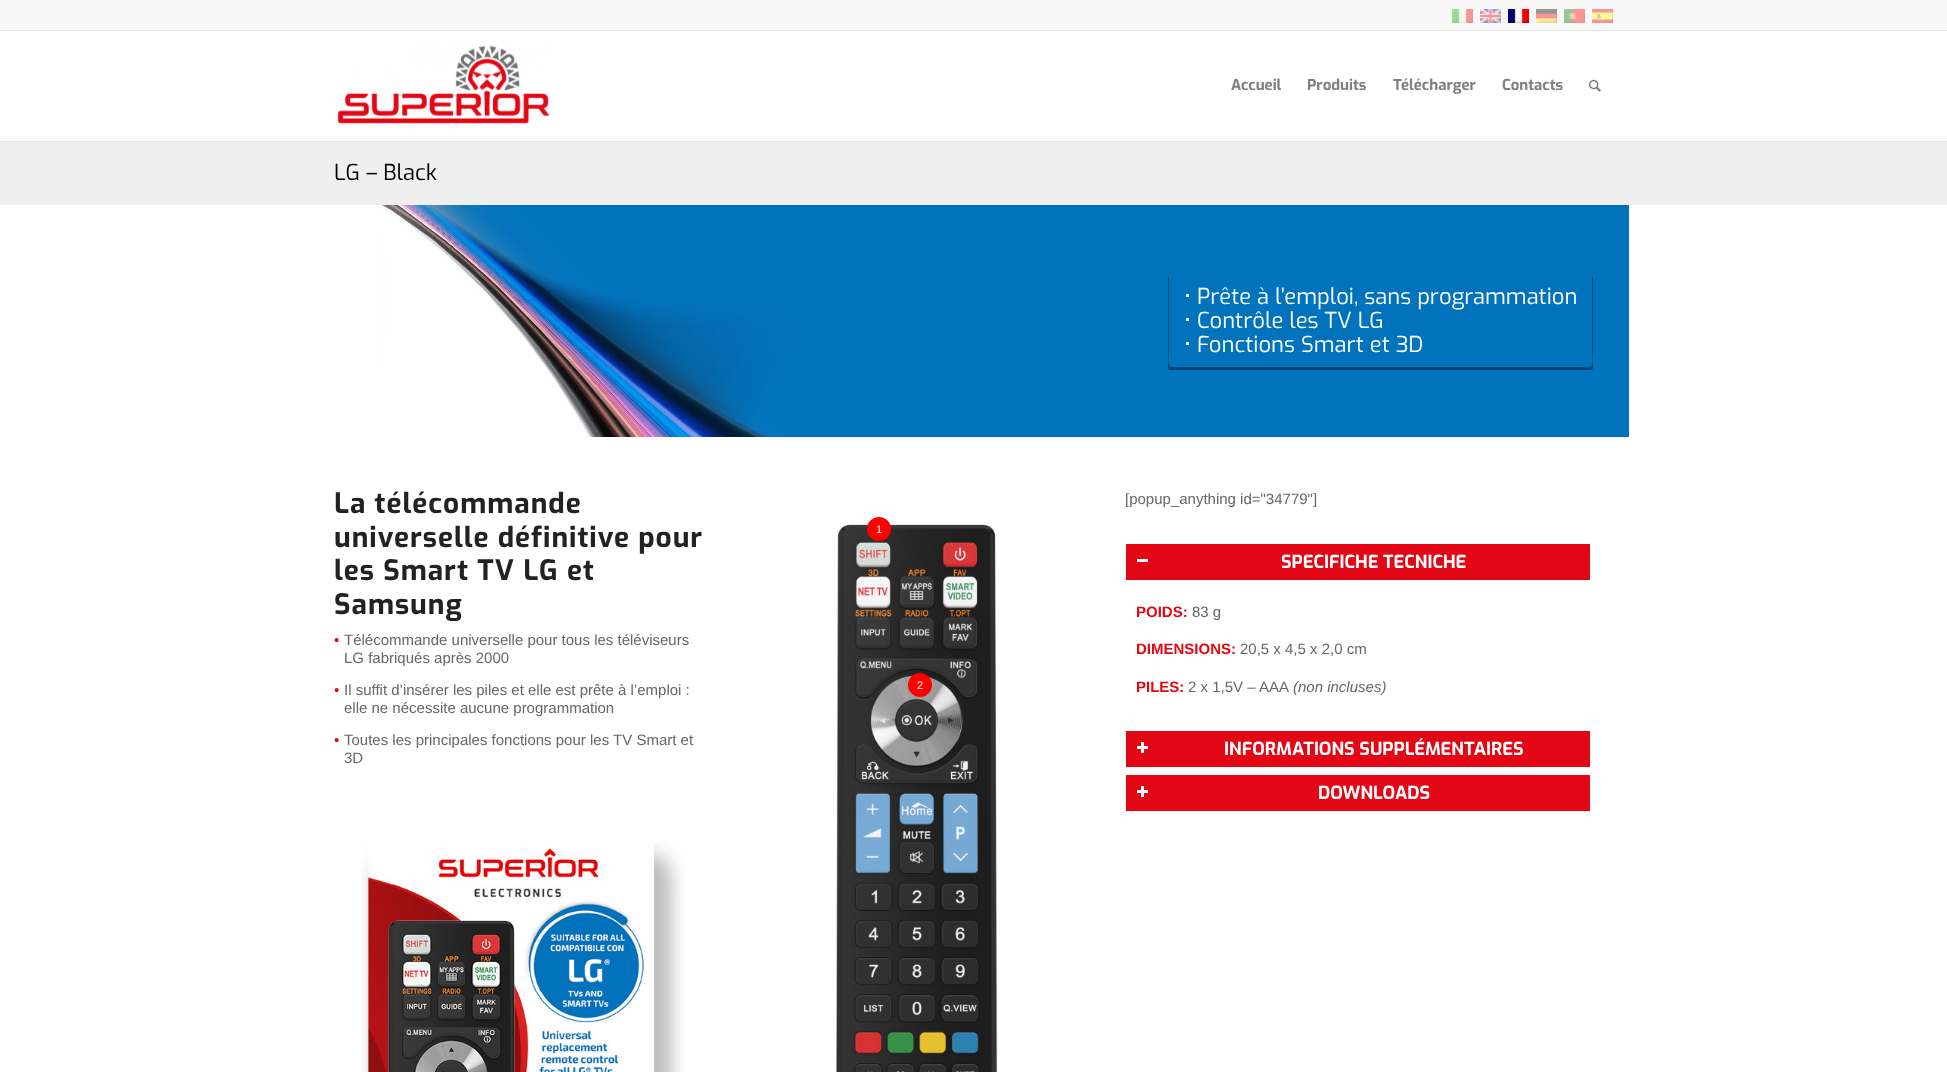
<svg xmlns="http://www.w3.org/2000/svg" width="1947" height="1072">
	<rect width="100%" height="100%" fill="#FFFFFF" />
	<rect x="0" y="0" width="1947" height="30" fill="#F8F8F8" />
	<rect x="0" y="30" width="1947" height="1" fill="#E1E1E1" />
	<image x="1452" y="9" width="21" height="14" href="assets/img1.png" />
	<image x="1480" y="9" width="21" height="14" href="assets/img2.png" />
	<image x="1508" y="9" width="21" height="14" href="assets/img3.png" />
	<image x="1536" y="9" width="21" height="14" href="assets/img4.png" />
	<image x="1564" y="9" width="21" height="14" href="assets/img5.png" />
	<image x="1592" y="9" width="21" height="14" href="assets/img6.png" />
	<rect x="0" y="141" width="1947" height="1" fill="#E1E1E1" />
	<image x="337" y="45" width="213" height="79" href="assets/img7.png" />
	<g font-family="Exo" font-size="15" font-weight="700" fill="#808080">
		<text x="1231" y="90">Accueil</text>
		<text x="1307" y="90">Produits</text>
		<text x="1393" y="90">Télécharger</text>
		<text x="1502" y="90">Contacts</text>
	</g>
	<image x="1589" y="79" width="12" height="13" href="assets/img8.png" />
	<rect x="0" y="142" width="1947" height="63" fill="#EFEFEF" />
	<text x="334" y="180" font-family="Exo" font-size="22" fill="#000000">LG – Black</text>
	<image x="376" y="205" width="1253" height="232" href="assets/img9.png" />
	<path d="M1169 277C1168 277 1168 278 1168 279V367C1168 369 1169 370 1171 370H1590C1592 370 1593 369 1593 367V279C1593 278 1593 277 1592 277V350C1592 353 1594 367 1590 367H1171C1167 367 1169 353 1169 350Z" fill="#014571" />
	<g font-family="Exo" font-size="22" fill="#FFFFFF">
		<text x="1184" y="304">• Prête à l’emploi, sans programmation</text>
		<text x="1184" y="328">• Contrôle les TV LG</text>
		<text x="1184" y="352">• Fonctions Smart et 3D</text>
	</g>
	<g font-family="Exo" font-size="28" font-weight="700" letter-spacing="1" fill="#222222">
		<text x="334" y="513">La télécommande</text>
		<text x="334" y="547">universelle définitive pour</text>
		<text x="334" y="580">les Smart TV LG et</text>
		<text x="334" y="614">Samsung</text>
	</g>
	<text x="334" y="645" font-family="Liberation Sans" font-size="15" fill="#E30613">•</text>
	<g font-family="Liberation Sans" font-size="15" fill="#666666">
		<text x="344" y="645">Télécommande universelle pour tous les téléviseurs</text>
		<text x="344" y="663">LG fabriqués après 2000</text>
	</g>
	<text x="334" y="695" font-family="Liberation Sans" font-size="15" fill="#E30613">•</text>
	<g font-family="Liberation Sans" font-size="15" fill="#666666">
		<text x="344" y="695">Il suffit d’insérer les piles et elle est prête à l’emploi :</text>
		<text x="344" y="713">elle ne nécessite aucune programmation</text>
	</g>
	<text x="334" y="745" font-family="Liberation Sans" font-size="15" fill="#E30613">•</text>
	<g font-family="Liberation Sans" font-size="15" fill="#666666">
		<text x="344" y="745">Toutes les principales fonctions pour les TV Smart et</text>
		<text x="344" y="763">3D</text>
	</g>
	<image x="361" y="842" width="324" height="230" href="assets/img10.png" />
	<image x="836" y="524" width="162" height="548" href="assets/img11.png" />
	<circle cx="879" cy="529" r="12" fill="#FF0000" />
	<text x="876" y="533" font-family="Liberation Sans" font-size="11" fill="#FFFFFF">1</text>
	<circle cx="920" cy="685" r="12" fill="#FF0000" />
	<text x="917" y="689" font-family="Liberation Sans" font-size="11" fill="#FFFFFF">2</text>
	<text x="1125" y="504" font-family="Liberation Sans" font-size="15" fill="#666666">[popup_anything id="34779"]</text>
	<path d="M1127 543.5H1589C1590 543.5 1590.5 544 1590.5 545V580.5H1125.5V545C1125.5 544 1126 543.5 1127 543.5Z" fill="#E30615" stroke="#FFFFFF" />
	<rect x="1137" y="559" width="11" height="3" fill="#FFFFFF" />
	<text x="1281" y="568" font-family="Exo" font-size="18" font-weight="700" fill="#FFFFFF">SPECIFICHE TECNICHE</text>
	<text x="1136" y="617" font-family="Liberation Sans" font-size="15" font-weight="700" fill="#E30613">POIDS:</text>
	<text x="1192" y="617" font-family="Liberation Sans" font-size="15" fill="#666666">83 g</text>
	<text x="1136" y="654" font-family="Liberation Sans" font-size="15" font-weight="700" fill="#E30613">DIMENSIONS:</text>
	<text x="1240" y="654" font-family="Liberation Sans" font-size="15" fill="#666666">20,5 x 4,5 x 2,0 cm</text>
	<text x="1136" y="692" font-family="Liberation Sans" font-size="15" font-weight="700" fill="#E30613">PILES:</text>
	<text x="1188" y="692" font-family="Liberation Sans" font-size="15" fill="#666666">2 x 1,5V – AAA</text>
	<text x="1293" y="692" font-family="Liberation Sans" font-size="15" font-style="italic" fill="#666666">(non incluses)</text>
	<path d="M1127 730.5H1589C1590 730.5 1590.5 731 1590.5 732V767.5H1125.5V732C1125.5 731 1126 730.5 1127 730.5Z" fill="#E30615" stroke="#FFFFFF" />
	<rect x="1141" y="742" width="3" height="11" fill="#FFFFFF" />
	<rect x="1137" y="746" width="11" height="3" fill="#FFFFFF" />
	<text x="1224" y="755" font-family="Exo" font-size="18" font-weight="700" fill="#FFFFFF">INFORMATIONS SUPPLÉMENTAIRES</text>
	<path d="M1127 774.5H1589C1590 774.5 1590.5 775 1590.5 776V811.5H1125.5V776C1125.5 775 1126 774.5 1127 774.5Z" fill="#E30615" stroke="#FFFFFF" />
	<rect x="1141" y="786" width="3" height="11" fill="#FFFFFF" />
	<rect x="1137" y="790" width="11" height="3" fill="#FFFFFF" />
	<text x="1318" y="799" font-family="Exo" font-size="18" font-weight="700" fill="#FFFFFF">DOWNLOADS</text>
</svg>
